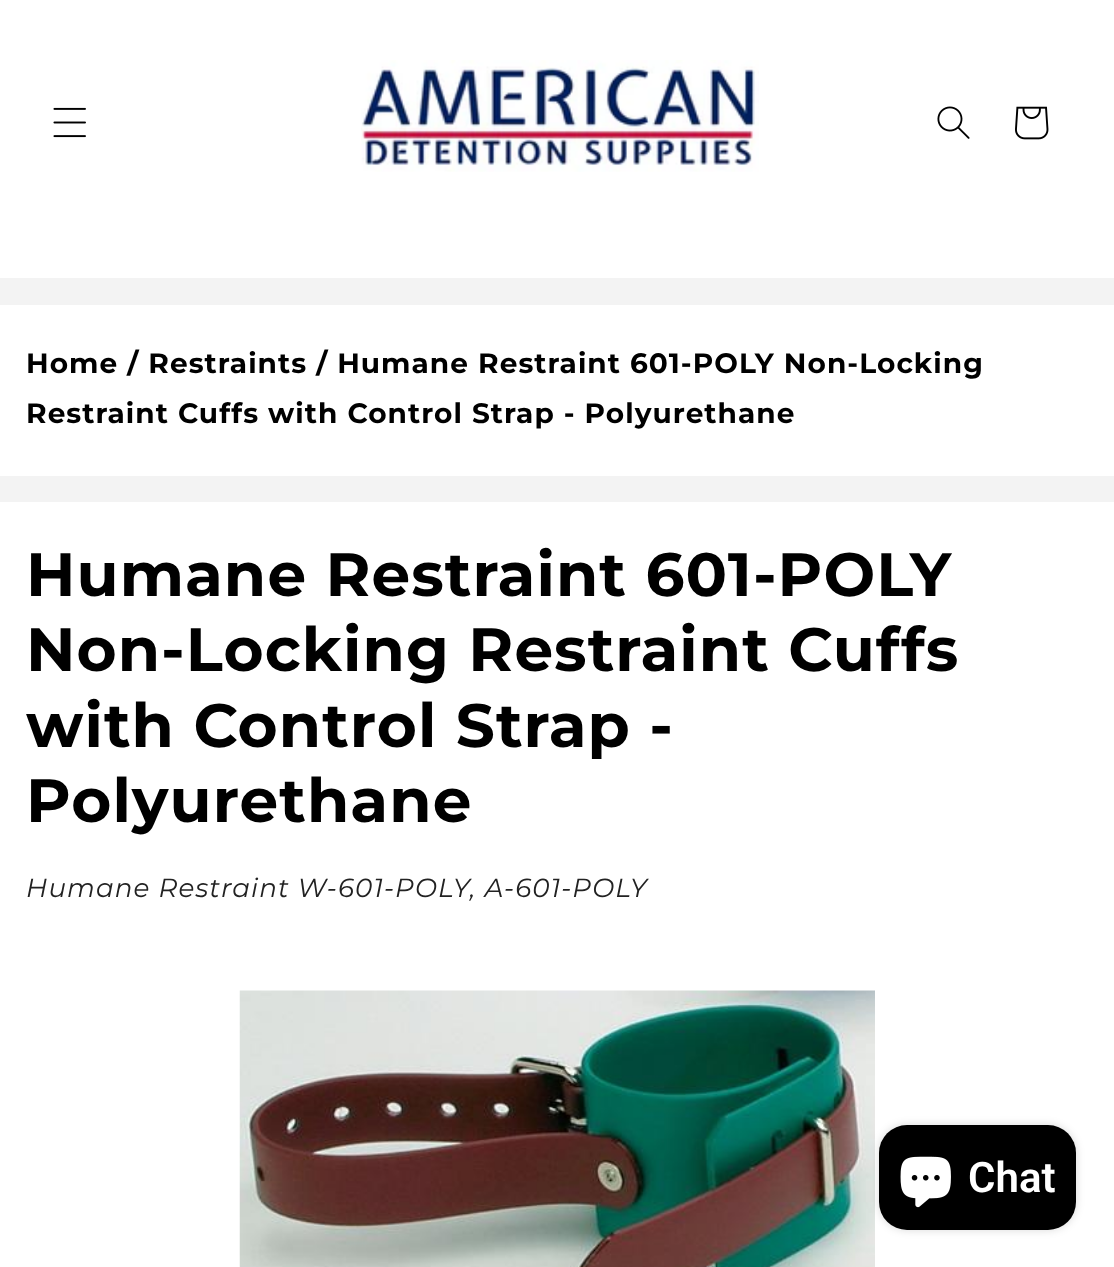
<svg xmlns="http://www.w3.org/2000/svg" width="1114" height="1267">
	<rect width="100%" height="100%" fill="#FFFFFF" />
	<image x="53" y="107" width="33" height="31" href="assets/img1.png" />
	<image x="361" y="60" width="398" height="112" href="assets/img2.png" />
	<image x="937" y="106" width="33" height="33" href="assets/img3.png" />
	<image x="1015" y="106" width="34" height="34" href="assets/img4.png" />
	<rect x="0" y="278" width="1114" height="224" fill="#F3F3F3" />
	<rect x="0" y="305" width="1114" height="171" fill="#FFFFFF" />
	<g font-family="Montserrat" font-size="28" font-weight="700" letter-spacing="1.05" fill="#000000">
		<text x="26" y="373">Home / Restraints / Humane Restraint 601-POLY Non-Locking</text>
		<text x="26" y="423">Restraint Cuffs with Control Strap - Polyurethane</text>
	</g>
	<g font-family="Montserrat" font-size="61.25" font-weight="700" letter-spacing="1.05" fill="#000000">
		<text x="26" y="596">Humane Restraint 601-POLY</text>
		<text x="26" y="671">Non-Locking Restraint Cuffs</text>
		<text x="26" y="747">with Control Strap -</text>
		<text x="26" y="822">Polyurethane</text>
	</g>
	<text x="26" y="897" font-family="Montserrat" font-size="26.25" font-style="italic" letter-spacing="1.05" fill="#222222">Humane Restraint W-601-POLY, A-601-POLY</text>
	<image x="239" y="990" width="636" height="277" href="assets/img5.png" />
	<rect x="879" y="1125" width="197" height="105" rx="28" fill="#000000" fill-opacity="0.15" filter="blur(4.5px)" />
	<rect x="879" y="1125" width="197" height="105" rx="28" fill="#000000" />
	<image x="900" y="1156" width="51" height="52" href="assets/img6.png" />
	<text x="968" y="1192" font-family="Roboto" font-size="42" font-weight="600" fill="#FFFFFF">Chat</text>
</svg>
